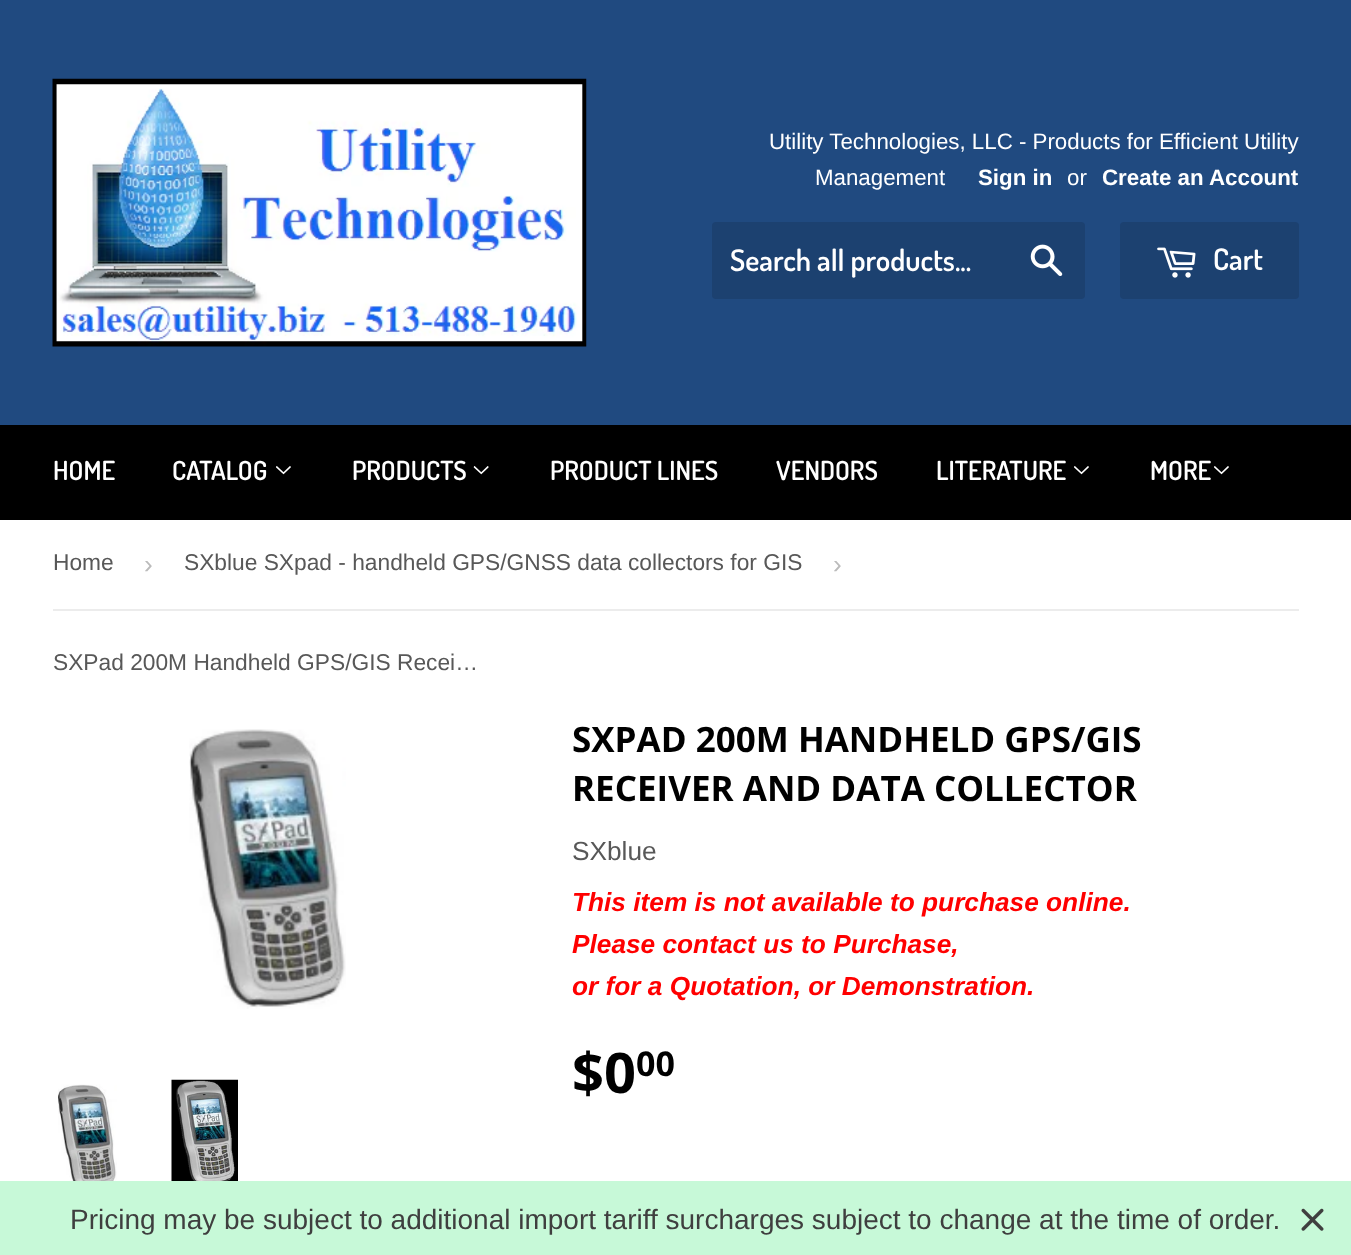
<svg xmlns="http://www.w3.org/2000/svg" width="1351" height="1255">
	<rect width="100%" height="100%" fill="#FFFFFF" />
	<rect x="0" y="0" width="1351" height="425" fill="#204A80" />
	<image x="52" y="78" width="535" height="269" href="assets/img1.png" />
	<g font-family="Liberation Sans" font-size="22.3" fill="#FFFFFF">
		<text x="769" y="149">Utility Technologies, LLC - Products for Efficient Utility</text>
		<text x="815" y="185">Management</text>
	</g>
	<text x="978" y="185" font-family="Liberation Sans" font-size="22.3" font-weight="700" fill="#FFFFFF">Sign in</text>
	<text x="1067" y="185" font-family="Liberation Sans" font-size="22.3" fill="#FFFFFF">or</text>
	<text x="1102" y="185" font-family="Liberation Sans" font-size="22.3" font-weight="700" fill="#FFFFFF">Create an Account</text>
	<rect x="712" y="222" width="373" height="77" rx="4" fill="#1C4170" />
	<text x="730" y="271" font-family="Dosis" font-size="29.75" font-weight="600" fill="#FFFFFF">Search all products...</text>
	<image x="1030" y="244" width="33" height="32" href="assets/img2.png" />
	<rect x="1120" y="222" width="179" height="77" rx="4" fill="#1C4170" />
	<image x="1157" y="247" width="39" height="31" href="assets/img3.png" />
	<text x="1213" y="270" font-family="Dosis" font-size="29.75" font-weight="600" fill="#FFFFFF">Cart</text>
	<rect x="0" y="425" width="1351" height="95" fill="#000000" />
	<g font-family="Dosis" font-size="26.25" font-weight="600" fill="#FFFFFF">
		<text x="53" y="480">HOME</text>
		<text x="172" y="480">CATALOG</text>
	</g>
	<image x="276" y="466" width="15" height="9" href="assets/img4.png" />
	<text x="352" y="480" font-family="Dosis" font-size="26.25" font-weight="600" fill="#FFFFFF">PRODUCTS</text>
	<image x="473" y="466" width="16" height="9" href="assets/img5.png" />
	<g font-family="Dosis" font-size="26.25" font-weight="600" fill="#FFFFFF">
		<text x="550" y="480">PRODUCT LINES</text>
		<text x="776" y="480">VENDORS</text>
		<text x="936" y="480">LITERATURE</text>
	</g>
	<image x="1074" y="466" width="15" height="9" href="assets/img4.png" />
	<text x="1150" y="480" font-family="Dosis" font-size="26.25" font-weight="600" fill="#FFFFFF">MORE</text>
	<image x="1214" y="466" width="15" height="9" href="assets/img4.png" />
	<rect x="53" y="609" width="1246" height="2" fill="#ECECEC" />
	<text x="53" y="570" font-family="Liberation Sans" font-size="22.75" fill="#585858">Home</text>
	<text x="144" y="573" font-family="Liberation Sans" font-size="26.25" fill="#BBBBBB">›</text>
	<text x="184" y="570" font-family="Liberation Sans" font-size="22.75" fill="#585858">SXblue SXpad - handheld GPS/GNSS data collectors for GIS</text>
	<text x="833" y="573" font-family="Liberation Sans" font-size="26.25" fill="#BBBBBB">›</text>
	<text x="53" y="670" font-family="Liberation Sans" font-size="22.75" fill="#585858">SXPad 200M Handheld GPS/GIS Recei…</text>
	<image x="189" y="729" width="157" height="280" href="assets/img6.png" />
	<image x="58" y="1084" width="59" height="97" href="assets/img7.png" />
	<image x="171" y="1079" width="67" height="102" href="assets/img8.png" />
	<g font-family="Open Sans" font-size="35" font-weight="700" fill="#000000">
		<text x="572" y="752">SXPAD 200M HANDHELD GPS/GIS</text>
		<text x="572" y="801">RECEIVER AND DATA COLLECTOR</text>
	</g>
	<text x="572" y="860" font-family="Liberation Sans" font-size="26.25" fill="#585858">SXblue</text>
	<g font-family="Liberation Sans" font-size="26.25" font-weight="700" font-style="italic" fill="#FF0000">
		<text x="572" y="911">This item is not available to purchase online.</text>
		<text x="572" y="953">Please contact us to Purchase,</text>
		<text x="572" y="995">or for a Quotation, or Demonstration.</text>
	</g>
	<text x="572" y="1093" font-family="Open Sans" font-size="56" font-weight="700" fill="#000000">$0</text>
	<text x="636" y="1076" font-family="Open Sans" font-size="34" font-weight="700" fill="#000000">00</text>
	<rect x="0" y="1181" width="1351" height="74" fill="#C7F9D8" />
	<text x="70" y="1229" font-family="Liberation Sans" font-size="28" fill="#3F3F3F">Pricing may be subject to additional import tariff surcharges subject to change at the time of order.</text>
	<image x="1301" y="1208" width="23" height="23" href="assets/img9.png" />
</svg>
